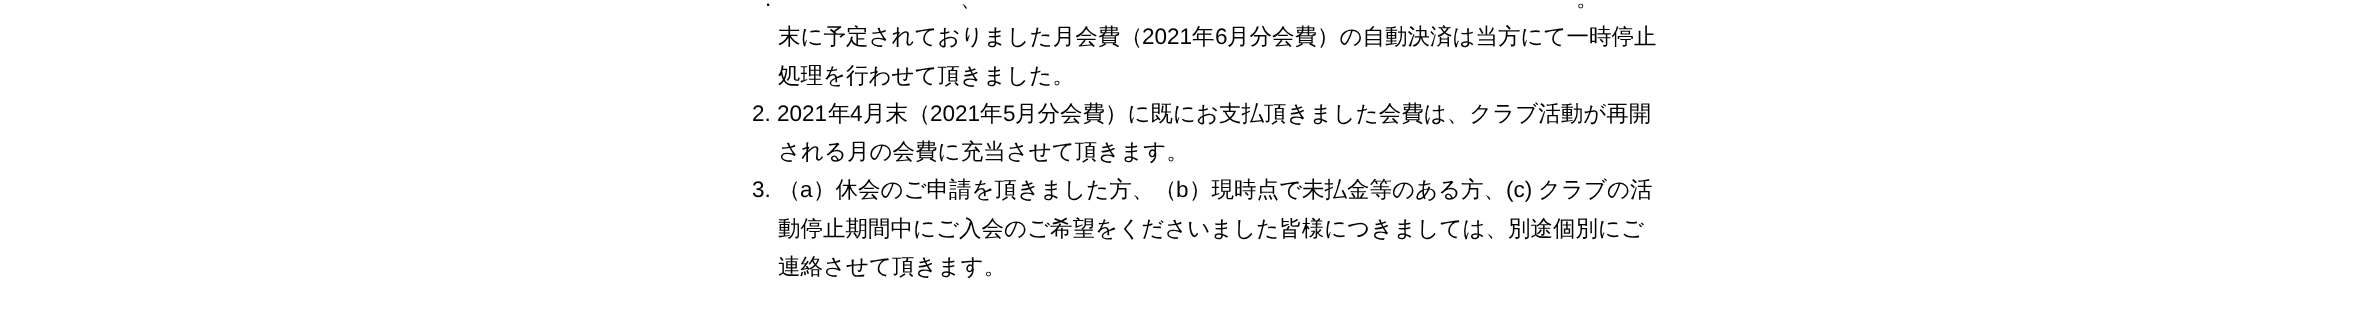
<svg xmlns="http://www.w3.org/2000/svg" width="2380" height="330">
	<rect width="100%" height="100%" fill="#FFFFFF" />
	<text x="765" y="6" font-family="Liberation Sans" font-size="22.5" fill="#040100">.</text>
	<g font-family="WenQuanYi Zen Hei" font-size="22.5" font-weight="500" fill="#040100">
		<text x="960" y="6">、</text>
		<text x="1576" y="6">。</text>
		<text x="778" y="44">末に予定されておりました月会費（</text>
	</g>
	<text x="1142" y="44" font-family="Liberation Sans" font-size="22.5" fill="#040100">2021</text>
	<text x="1192" y="44" font-family="WenQuanYi Zen Hei" font-size="22.5" font-weight="500" fill="#040100">年</text>
	<text x="1215" y="44" font-family="Liberation Sans" font-size="22.5" fill="#040100">6</text>
	<g font-family="WenQuanYi Zen Hei" font-size="22.5" font-weight="500" fill="#040100">
		<text x="1227" y="44">月分会費）の自動決済は当方にて一時停止</text>
		<text x="778" y="83">処理を行わせて頂きました。</text>
	</g>
	<text x="752" y="121" font-family="Liberation Sans" font-size="22.5" fill="#040100">2. 2021</text>
	<text x="828" y="121" font-family="WenQuanYi Zen Hei" font-size="22.5" font-weight="500" fill="#040100">年</text>
	<text x="850" y="121" font-family="Liberation Sans" font-size="22.5" fill="#040100">4</text>
	<text x="863" y="121" font-family="WenQuanYi Zen Hei" font-size="22.5" font-weight="500" fill="#040100">月末（</text>
	<text x="930" y="121" font-family="Liberation Sans" font-size="22.5" fill="#040100">2021</text>
	<text x="980" y="121" font-family="WenQuanYi Zen Hei" font-size="22.5" font-weight="500" fill="#040100">年</text>
	<text x="1003" y="121" font-family="Liberation Sans" font-size="22.5" fill="#040100">5</text>
	<g font-family="WenQuanYi Zen Hei" font-size="22.5" font-weight="500" fill="#040100">
		<text x="1015" y="121">月分会費）に既にお支払頂きました会費は、クラブ活動が再開</text>
		<text x="778" y="159">される月の会費に充当させて頂きます。</text>
	</g>
	<text x="752" y="197" font-family="Liberation Sans" font-size="22.5" fill="#040100">3.</text>
	<text x="778" y="197" font-family="WenQuanYi Zen Hei" font-size="22.5" font-weight="500" fill="#040100">（</text>
	<text x="800" y="197" font-family="Liberation Sans" font-size="22.5" fill="#040100">a</text>
	<text x="813" y="197" font-family="WenQuanYi Zen Hei" font-size="22.5" font-weight="500" fill="#040100">）休会のご申請を頂きました方、（</text>
	<text x="1176" y="197" font-family="Liberation Sans" font-size="22.5" fill="#040100">b</text>
	<text x="1189" y="197" font-family="WenQuanYi Zen Hei" font-size="22.5" font-weight="500" fill="#040100">）現時点で未払金等のある方、</text>
	<text x="1506" y="197" font-family="Liberation Sans" font-size="22.5" fill="#040100">(c)</text>
	<g font-family="WenQuanYi Zen Hei" font-size="22.5" font-weight="500" fill="#040100">
		<text x="1538" y="197">クラブの活</text>
		<text x="778" y="236">動停止期間中にご入会のご希望をくださいました皆様につきましては、別途個別にご</text>
		<text x="778" y="274">連絡させて頂きます。</text>
	</g>
</svg>
